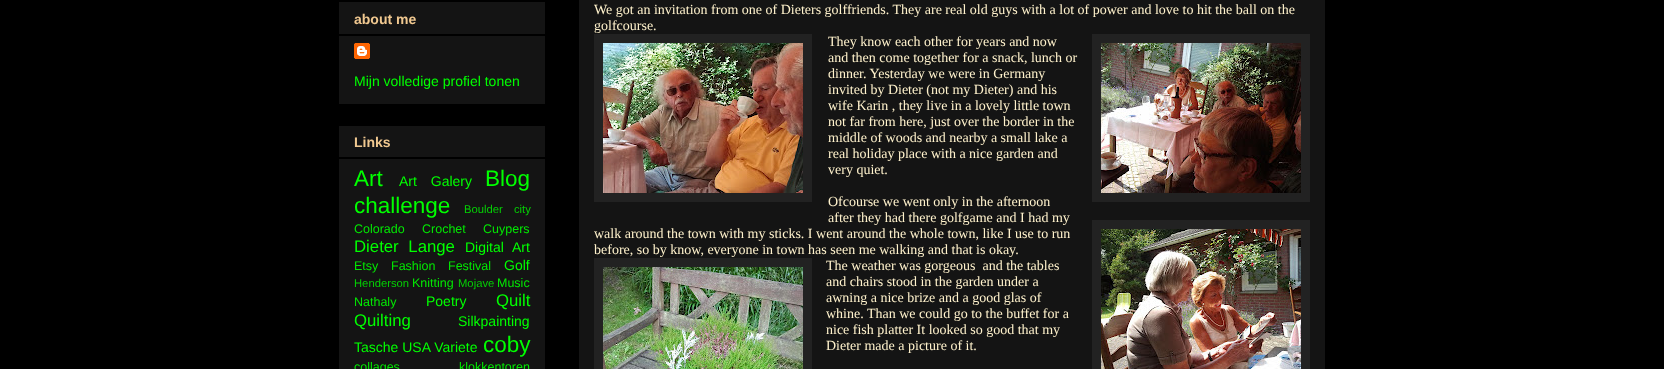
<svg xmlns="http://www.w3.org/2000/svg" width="1664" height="369">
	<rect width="100%" height="100%" fill="#000000" />
	<rect x="339" y="2" width="206" height="102" fill="#141414" />
	<text x="354" y="24" font-family="Liberation Sans" font-size="14" font-weight="700" fill="#F0C890">about me</text>
	<rect x="339" y="34" width="206" height="2" fill="#000000" />
	<image x="354" y="43" width="16" height="16" href="assets/img1.png" />
	<text x="354" y="86" font-family="Liberation Sans" font-size="14" fill="#00FF00">Mijn volledige profiel tonen</text>
	<rect x="339" y="126" width="206" height="243" fill="#141414" />
	<text x="354" y="147" font-family="Liberation Sans" font-size="14" font-weight="700" fill="#F0C890">Links</text>
	<rect x="339" y="157" width="206" height="2" fill="#000000" />
	<text x="354" y="186" font-family="Liberation Sans" font-size="22.5" fill="#00FF00">Art</text>
	<text x="399" y="186" word-spacing="10" font-family="Liberation Sans" font-size="14" fill="#00FF00">Art Galery</text>
	<g font-family="Liberation Sans" font-size="22.5" fill="#00FF00">
		<text x="485" y="186">Blog</text>
		<text x="354" y="213">challenge</text>
	</g>
	<text x="464" y="213" word-spacing="8" font-family="Liberation Sans" font-size="11.25" fill="#04D004">Boulder city</text>
	<g font-family="Liberation Sans" font-size="12.5" fill="#02E802">
		<text x="354" y="233">Colorado</text>
		<text x="422" y="233">Crochet</text>
		<text x="483" y="233">Cuypers</text>
	</g>
	<text x="354" y="252" word-spacing="5" font-family="Liberation Sans" font-size="16.75" fill="#00FF00">Dieter Lange</text>
	<text x="465" y="252" word-spacing="5" font-family="Liberation Sans" font-size="14" fill="#00FF00">Digital Art</text>
	<g font-family="Liberation Sans" font-size="12.5" fill="#02E802">
		<text x="354" y="270">Etsy</text>
		<text x="391" y="270">Fashion</text>
		<text x="448" y="270">Festival</text>
	</g>
	<text x="504" y="270" font-family="Liberation Sans" font-size="14" fill="#00FF00">Golf</text>
	<text x="354" y="287" font-family="Liberation Sans" font-size="11.25" fill="#04D004">Henderson</text>
	<text x="412" y="287" font-family="Liberation Sans" font-size="12.5" fill="#02E802">Knitting</text>
	<text x="458" y="287" font-family="Liberation Sans" font-size="11.25" fill="#04D004">Mojave</text>
	<g font-family="Liberation Sans" font-size="12.5" fill="#02E802">
		<text x="497" y="287">Music</text>
		<text x="354" y="306">Nathaly</text>
	</g>
	<text x="426" y="306" font-family="Liberation Sans" font-size="14" fill="#00FF00">Poetry</text>
	<g font-family="Liberation Sans" font-size="16.75" fill="#00FF00">
		<text x="496" y="306">Quilt</text>
		<text x="354" y="326">Quilting</text>
	</g>
	<g font-family="Liberation Sans" font-size="14" fill="#00FF00">
		<text x="458" y="326">Silkpainting</text>
		<text x="354" y="352">Tasche USA Variete</text>
	</g>
	<text x="483" y="352" font-family="Liberation Sans" font-size="22.5" fill="#00FF00">coby</text>
	<g font-family="Liberation Sans" font-size="12.5" fill="#02E802">
		<text x="354" y="371">collages</text>
		<text x="459" y="371">klokkentoren</text>
	</g>
	<rect x="579" y="0" width="746" height="369" fill="#141414" />
	<g font-family="Liberation Serif" font-size="14" fill="#FFF2CC">
		<text x="594" y="14">We got an invitation from one of Dieters golffriends. They are real old guys with a lot of power and love to hit the ball on the</text>
		<text x="594" y="30">golfcourse.</text>
	</g>
	<rect x="594" y="34" width="218" height="168" fill="#222222" />
	<image x="603" y="43" width="200" height="150" href="assets/img2.png" />
	<g font-family="Liberation Serif" font-size="14" fill="#FFF2CC">
		<text x="828" y="46">They know each other for years and now</text>
		<text x="828" y="62">and then come together for a snack, lunch or</text>
		<text x="828" y="78">dinner. Yesterday we were in Germany</text>
		<text x="828" y="94">invited by Dieter (not my Dieter) and his</text>
		<text x="828" y="110">wife Karin , they live in a lovely little town</text>
		<text x="828" y="126">not far from here, just over the border in the</text>
		<text x="828" y="142">middle of woods and nearby a small lake a</text>
		<text x="828" y="158">real holiday place with a nice garden and</text>
		<text x="828" y="174">very quiet.</text>
	</g>
	<rect x="1092" y="220" width="218" height="149" fill="#222222" />
	<image x="1101" y="229" width="200" height="140" href="assets/img3.png" />
	<rect x="1092" y="34" width="218" height="168" fill="#222222" />
	<image x="1101" y="43" width="200" height="150" href="assets/img4.png" />
	<g font-family="Liberation Serif" font-size="14" fill="#FFF2CC">
		<text x="828" y="206">Ofcourse we went only in the afternoon</text>
		<text x="828" y="222">after they had there golfgame and I had my</text>
		<text x="594" y="238">walk around the town with my sticks. I went around the whole town, like I use to run</text>
		<text x="594" y="254">before, so by know, everyone in town has seen me walking and that is okay.</text>
	</g>
	<rect x="594" y="258" width="218" height="111" fill="#222222" />
	<image x="603" y="267" width="200" height="102" href="assets/img5.png" />
	<g font-family="Liberation Serif" font-size="14" fill="#FFF2CC">
		<text x="826" y="270" xml:space="preserve">The weather was gorgeous  and the tables</text>
		<text x="826" y="286">and chairs stood in the garden under a</text>
		<text x="826" y="302">awning a nice brize and a good glas of</text>
		<text x="826" y="318">whine. Than we could go to the buffet for a</text>
		<text x="826" y="334">nice fish platter It looked so good that my</text>
		<text x="826" y="350">Dieter made a picture of it.</text>
	</g>
</svg>
